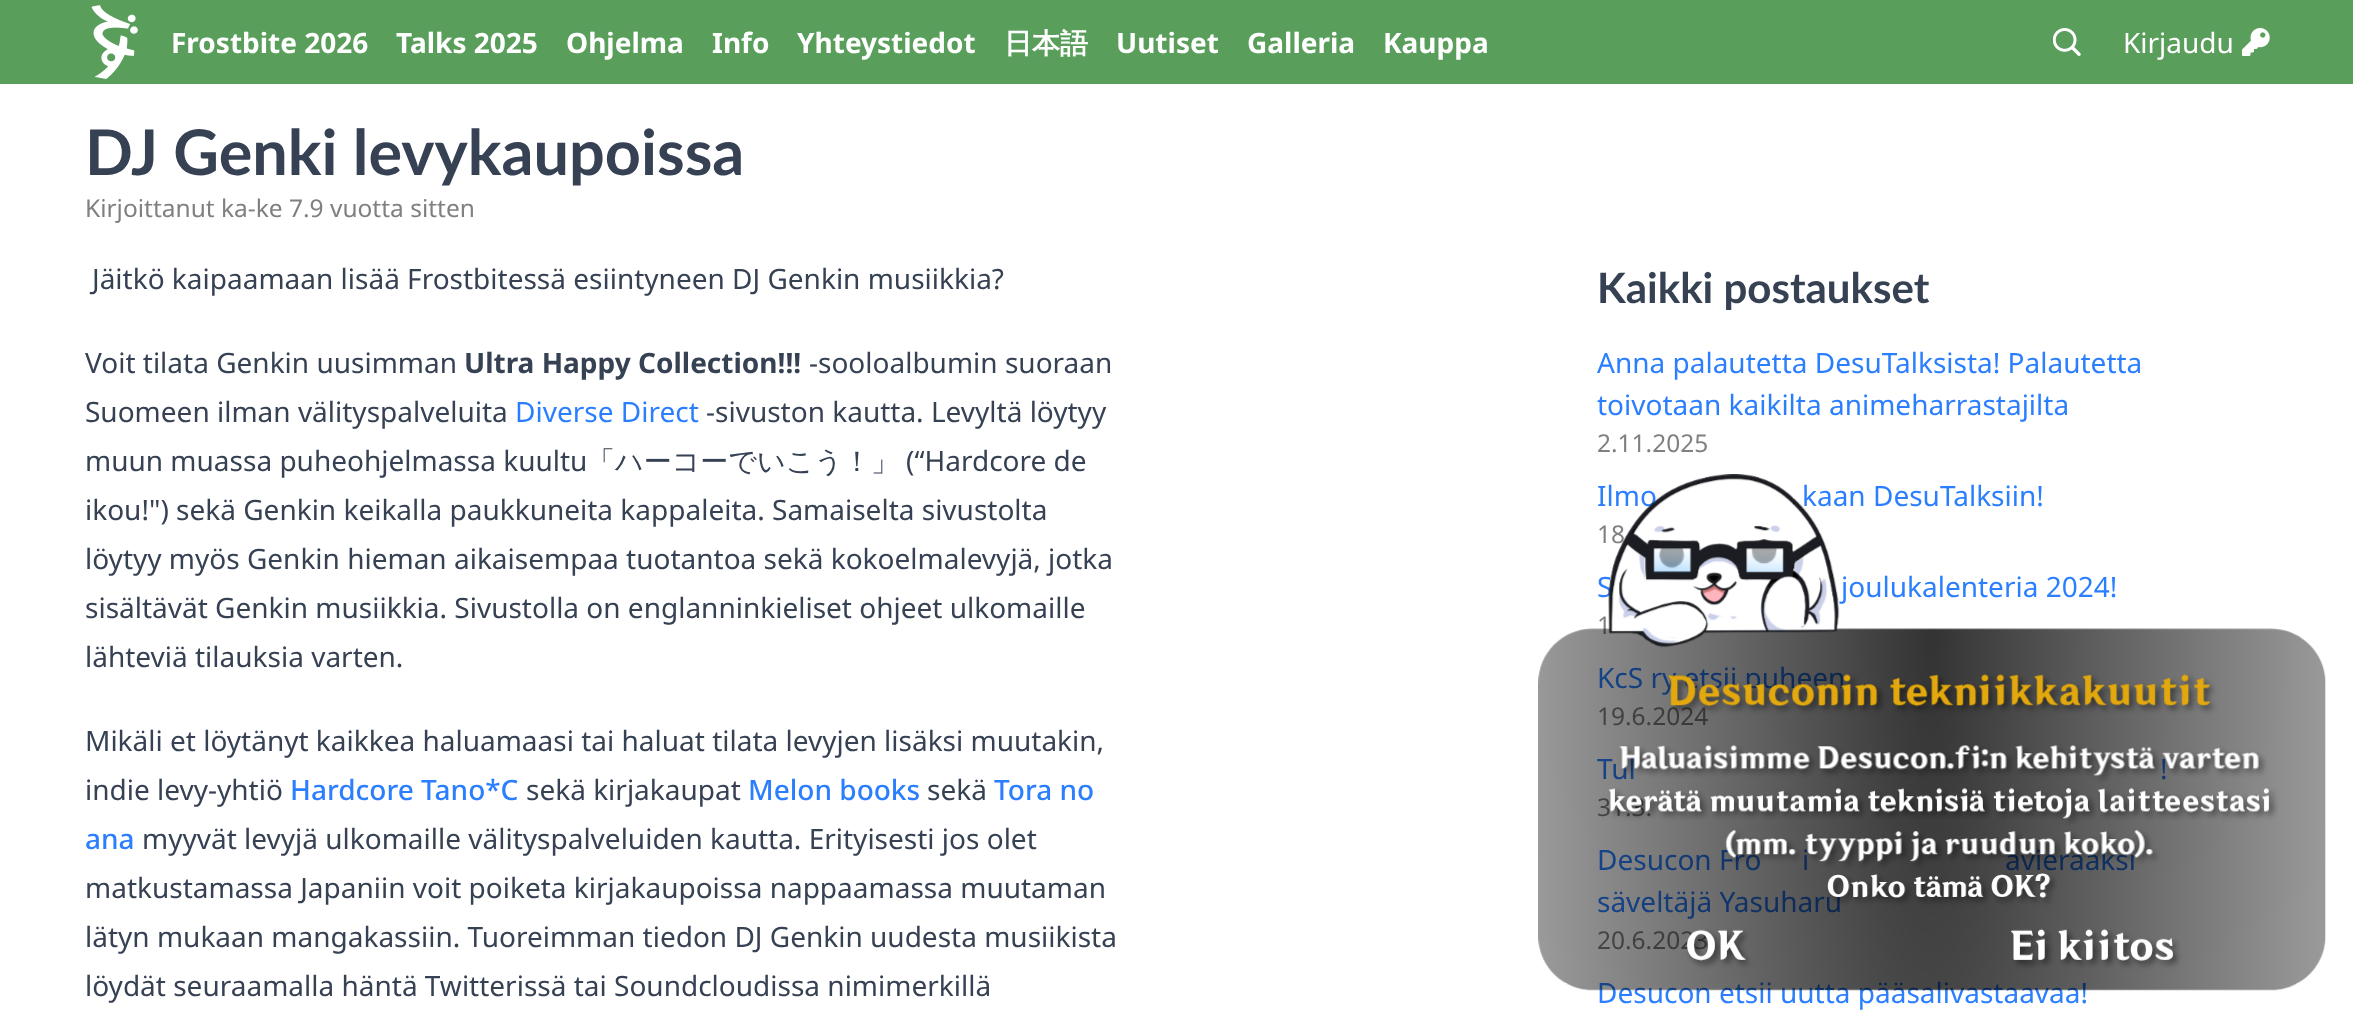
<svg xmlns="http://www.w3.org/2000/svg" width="2353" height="1018">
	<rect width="100%" height="100%" fill="#FFFFFF" />
	<rect x="0" y="0" width="2353" height="84" fill="#5A9E5B" />
	<image x="91" y="5" width="47" height="74" href="assets/img1.png" />
	<g font-family="Noto Sans" font-size="28" font-weight="700" fill="#FFFFFF">
		<text x="171" y="53">Frostbite 2026</text>
		<text x="396" y="53">Talks 2025</text>
		<text x="566" y="53">Ohjelma</text>
		<text x="712" y="53">Info</text>
		<text x="797" y="53">Yhteystiedot</text>
	</g>
	<text x="1004" y="53" font-family="WenQuanYi Zen Hei" font-size="28" font-weight="700" fill="#FFFFFF">日本語</text>
	<g font-family="Noto Sans" font-size="28" font-weight="700" fill="#FFFFFF">
		<text x="1116" y="53">Uutiset</text>
		<text x="1247" y="53">Galleria</text>
		<text x="1383" y="53">Kauppa</text>
	</g>
	<image x="2053" y="28" width="28" height="28" href="assets/img2.png" />
	<text x="2123" y="53" font-family="Noto Sans" font-size="28" fill="#FFFFFF">Kirjaudu</text>
	<image x="2242" y="28" width="28" height="28" href="assets/img3.png" />
	<text x="85" y="175" font-family="Lato" font-size="63" font-weight="700" fill="#364153">DJ Genki levykaupoissa</text>
	<text x="85" y="217" font-family="Noto Sans" font-size="24.5" fill="#808080">Kirjoittanut ka-ke 7.9 vuotta sitten</text>
	<g font-family="Noto Sans" font-size="28" fill="#364153">
		<text x="92" y="289">Jäitkö kaipaamaan lisää Frostbitessä esiintyneen DJ Genkin musiikkia?</text>
		<text x="85" y="373">Voit tilata Genkin uusimman</text>
	</g>
	<text x="464" y="373" font-family="Noto Sans" font-size="28" font-weight="700" fill="#364153">Ultra Happy Collection!!!</text>
	<g font-family="Noto Sans" font-size="28" fill="#364153">
		<text x="809" y="373">-sooloalbumin suoraan</text>
		<text x="85" y="422">Suomeen ilman välityspalveluita</text>
	</g>
	<text x="515" y="422" font-family="Noto Sans" font-size="28" fill="#2B7FFF">Diverse Direct</text>
	<g font-family="Noto Sans" font-size="28" fill="#364153">
		<text x="706" y="422">-sivuston kautta. Levyltä löytyy</text>
		<text x="85" y="471">muun muassa puheohjelmassa kuultu</text>
	</g>
	<text x="587" y="471" font-family="WenQuanYi Zen Hei" font-size="28" font-weight="500" fill="#364153">「ハーコーでいこう！」</text>
	<g font-family="Noto Sans" font-size="28" fill="#364153">
		<text x="906" y="471">(“Hardcore de</text>
		<text x="85" y="520">ikou!") sekä Genkin keikalla paukkuneita kappaleita. Samaiselta sivustolta</text>
		<text x="85" y="569">löytyy myös Genkin hieman aikaisempaa tuotantoa sekä kokoelmalevyjä, jotka</text>
		<text x="85" y="618">sisältävät Genkin musiikkia. Sivustolla on englanninkieliset ohjeet ulkomaille</text>
		<text x="85" y="667">lähteviä tilauksia varten.</text>
		<text x="85" y="751">Mikäli et löytänyt kaikkea haluamaasi tai haluat tilata levyjen lisäksi muutakin,</text>
		<text x="85" y="800">indie levy-yhtiö</text>
	</g>
	<text x="290" y="800" font-family="Noto Sans" font-size="28" font-weight="500" fill="#2B7FFF">Hardcore Tano*C</text>
	<text x="526" y="800" font-family="Noto Sans" font-size="28" fill="#364153">sekä kirjakaupat</text>
	<text x="748" y="800" font-family="Noto Sans" font-size="28" font-weight="500" fill="#2B7FFF">Melon books</text>
	<text x="927" y="800" font-family="Noto Sans" font-size="28" fill="#364153">sekä</text>
	<g font-family="Noto Sans" font-size="28" font-weight="500" fill="#2B7FFF">
		<text x="994" y="800">Tora no</text>
		<text x="85" y="849">ana</text>
	</g>
	<g font-family="Noto Sans" font-size="28" fill="#364153">
		<text x="142" y="849">myyvät levyjä ulkomaille välityspalveluiden kautta. Erityisesti jos olet</text>
		<text x="85" y="898">matkustamassa Japaniin voit poiketa kirjakaupoissa nappaamassa muutaman</text>
		<text x="85" y="947">lätyn mukaan mangakassiin. Tuoreimman tiedon DJ Genkin uudesta musiikista</text>
		<text x="85" y="996">löydät seuraamalla häntä Twitterissä tai Soundcloudissa nimimerkillä</text>
	</g>
	<text x="1597" y="303" font-family="Lato" font-size="42" font-weight="700" fill="#364153">Kaikki postaukset</text>
	<g font-family="Noto Sans" font-size="28" fill="#2B7FFF">
		<text x="1597" y="373">Anna palautetta DesuTalksista! Palautetta</text>
		<text x="1597" y="415">toivotaan kaikilta animeharrastajilta</text>
	</g>
	<text x="1597" y="452" font-family="Noto Sans" font-size="24.5" fill="#808080">2.11.2025</text>
	<g font-family="Noto Sans" font-size="28" fill="#2B7FFF">
		<text x="1597" y="506">Ilmo</text>
		<text x="1802" y="506">kaan DesuTalksiin!</text>
	</g>
	<text x="1597" y="543" font-family="Noto Sans" font-size="24.5" fill="#808080">18</text>
	<g font-family="Noto Sans" font-size="28" fill="#2B7FFF">
		<text x="1597" y="597">S</text>
		<text x="1841" y="597">joulukalenteria 2024!</text>
	</g>
	<text x="1597" y="634" font-family="Noto Sans" font-size="24.5" fill="#808080">1</text>
	<text x="1597" y="688" font-family="Noto Sans" font-size="28" fill="#2B7FFF">KcS ry etsii puheen</text>
	<text x="1597" y="725" font-family="Noto Sans" font-size="24.5" fill="#808080">19.6.2024</text>
	<g font-family="Noto Sans" font-size="28" fill="#2B7FFF">
		<text x="1597" y="779">Tul</text>
		<text x="2160" y="779">!</text>
	</g>
	<text x="1597" y="816" font-family="Noto Sans" font-size="24.5" fill="#808080">31.3.</text>
	<g font-family="Noto Sans" font-size="28" fill="#2B7FFF">
		<text x="1597" y="870">Desucon Fro</text>
		<text x="1802" y="870">i</text>
		<text x="2005" y="870">avieraaksi</text>
		<text x="1597" y="912">säveltäjä Yasuharu</text>
	</g>
	<text x="1597" y="949" font-family="Noto Sans" font-size="24.5" fill="#808080">20.6.2023</text>
	<text x="1597" y="1003" font-family="Noto Sans" font-size="28" fill="#2B7FFF">Desucon etsii uutta pääsalivastaavaa!</text>
	<image x="1538" y="474" width="788" height="517" href="assets/img4.png" />
</svg>
